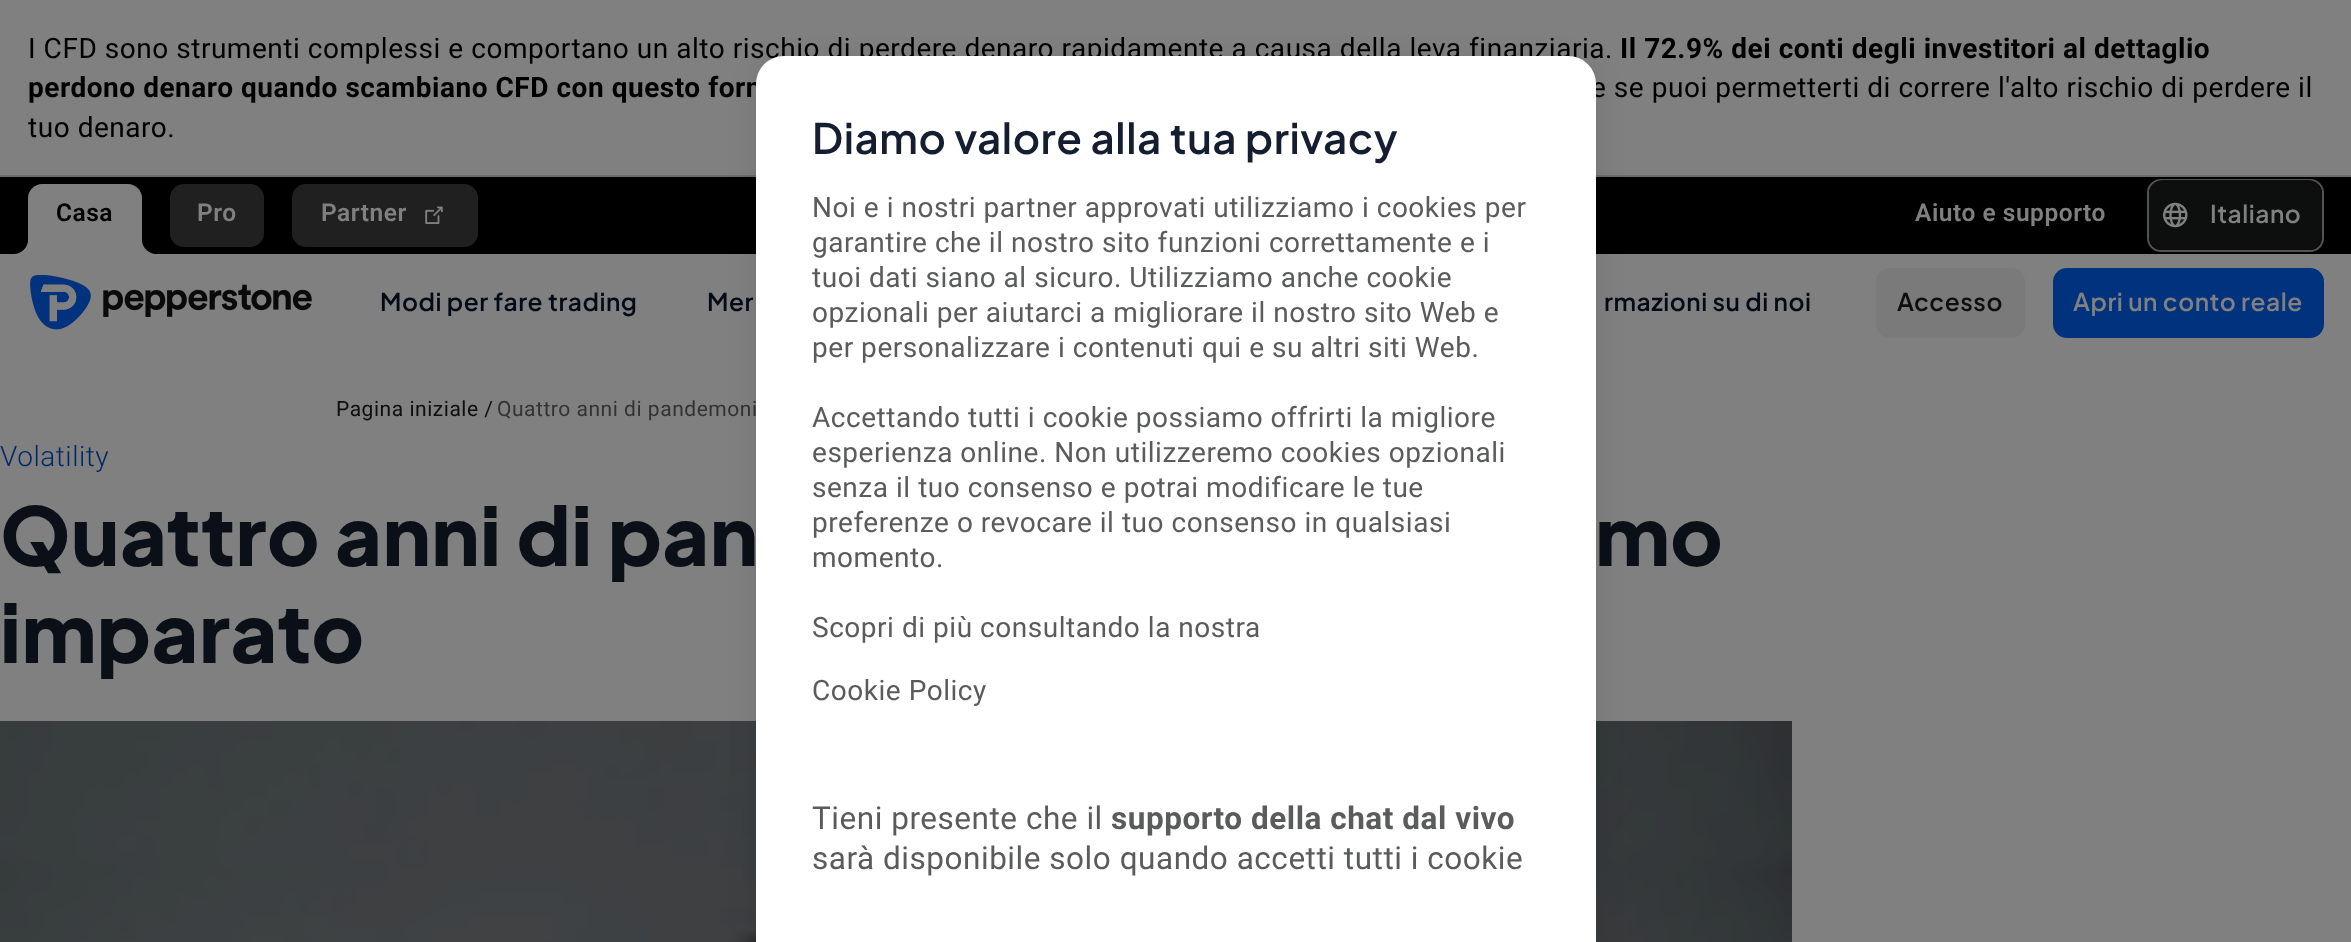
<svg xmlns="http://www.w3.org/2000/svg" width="2351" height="942">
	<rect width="100%" height="100%" fill="#808080" />
	<rect x="0" y="175" width="2351" height="2" fill="#6B6B6B" />
	<text x="28" y="58" font-family="Roboto" font-size="28" letter-spacing="0.53" fill="#000000">I CFD sono strumenti complessi e comportano un alto rischio di perdere denaro rapidamente a causa della leva finanziaria.</text>
	<g font-family="Roboto" font-size="28" font-weight="700" letter-spacing="0.53" fill="#000000">
		<text x="1620" y="58">Il 72.9% dei conti degli investitori al dettaglio</text>
		<text x="28" y="97">perdono denaro quando scambiano CFD con questo forn</text>
	</g>
	<g font-family="Roboto" font-size="28" letter-spacing="0.53" fill="#000000">
		<text x="1591" y="97">e se puoi permetterti di correre l'alto rischio di perdere il</text>
		<text x="28" y="137">tuo denaro.</text>
	</g>
	<rect x="0" y="177" width="2351" height="77" fill="#000000" />
	<path d="M42 184H128C135.5 184 142 190.5 142 198V254H28V198C28 190.5 34.5 184 42 184Z" fill="#808080" />
	<text x="56" y="221" font-family="Roboto" font-size="24.5" font-weight="600" letter-spacing="0.53" fill="#000000">Casa</text>
	<rect x="14" y="240" width="14" height="14" fill="#808080" />
	<path d="M14 226C21.5 226 28 232.5 28 240C28 247.5 21.5 254 14 254Z" fill="#000000" />
	<rect x="142" y="240" width="14" height="14" fill="#808080" />
	<path d="M156 226V254C148.5 254 142 247.5 142 240C142 232.5 148.5 226 156 226Z" fill="#000000" />
	<rect x="170" y="184" width="94" height="63" rx="14" fill="#202020" />
	<text x="197" y="221" font-family="Roboto" font-size="24.5" font-weight="600" letter-spacing="0.53" fill="#808080">Pro</text>
	<rect x="292" y="184" width="186" height="63" rx="14" fill="#202020" />
	<text x="321" y="221" font-family="Roboto" font-size="24.5" font-weight="600" letter-spacing="0.53" fill="#808080">Partner</text>
	<image x="425" y="206" width="18" height="18" href="assets/img1.png" />
	<text x="1915" y="221" font-family="Roboto" font-size="24.5" font-weight="600" letter-spacing="0.53" fill="#808080">Aiuto e supporto</text>
	<rect x="2148" y="180" width="175" height="71" rx="13" fill="none" stroke="#535353" stroke-width="2" />
	<rect x="2149" y="180" width="173" height="70" rx="14" fill="#0D0E0E" />
	<image x="2163" y="202" width="25" height="26" href="assets/img2.png" />
	<text x="2210" y="223" font-family="Plus Jakarta Sans" font-size="24.5" font-weight="600" letter-spacing="0.53" fill="#808080">Italiano</text>
	<image x="30" y="275" width="282" height="55" href="assets/img3.png" />
	<g font-family="Plus Jakarta Sans" font-size="24.5" font-weight="600" letter-spacing="0.53" fill="#020A17">
		<text x="380" y="311">Modi per fare trading</text>
		<text x="707" y="311">Mer</text>
		<text x="1604" y="311">rmazioni su di noi</text>
	</g>
	<rect x="1876" y="268" width="149" height="70" rx="14" fill="#7A7A7A" />
	<text x="1897" y="311" font-family="Plus Jakarta Sans" font-size="24.5" font-weight="600" letter-spacing="0.53" fill="#0D0E0E">Accesso</text>
	<rect x="2053" y="268" width="271" height="70" rx="14" fill="#00327D" />
	<text x="2073" y="311" font-family="Plus Jakarta Sans" font-size="24.5" font-weight="600" letter-spacing="0.53" fill="#808080">Apri un conto reale</text>
	<text x="336" y="416" font-family="Roboto" font-size="21" letter-spacing="0.53" fill="#0D0E0E">Pagina iniziale /</text>
	<text x="497" y="416" font-family="Roboto" font-size="21" letter-spacing="0.53" fill="#333333">Quattro anni di pandemoni</text>
	<text x="0" y="466" font-family="Roboto" font-size="28" font-weight="300" letter-spacing="0.53" fill="#002966">Volatility</text>
	<g font-family="Plus Jakarta Sans" font-size="80.5" font-weight="800" letter-spacing="0.53" fill="#0A0F18">
		<text x="0" y="566">Quattro anni di pan</text>
		<text x="1595" y="566">mo</text>
		<text x="0" y="663">imparato</text>
	</g>
	<image x="0" y="721" width="1792" height="221" href="assets/img4.png" />
	<rect x="756" y="63" width="840" height="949" rx="28" fill="#000000" fill-opacity="0.1" filter="blur(14px)" />
	<path d="M784 56H1568C1583.5 56 1596 68.5 1596 84V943H756V84C756 68.5 768.5 56 784 56Z" fill="#FFFFFF" />
	<text x="812" y="154" font-family="Plus Jakarta Sans" font-size="42" font-weight="600" letter-spacing="0.53" fill="#141E30">Diamo valore alla tua privacy</text>
	<g font-family="Roboto" font-size="28" letter-spacing="0.53" fill="#5A5B5B">
		<text x="812" y="217">Noi e i nostri partner approvati utilizziamo i cookies per</text>
		<text x="812" y="252">garantire che il nostro sito funzioni correttamente e i</text>
		<text x="812" y="287">tuoi dati siano al sicuro. Utilizziamo anche cookie</text>
		<text x="812" y="322">opzionali per aiutarci a migliorare il nostro sito Web e</text>
		<text x="812" y="357">per personalizzare i contenuti qui e su altri siti Web.</text>
		<text x="812" y="427">Accettando tutti i cookie possiamo offrirti la migliore</text>
		<text x="812" y="462">esperienza online. Non utilizzeremo cookies opzionali</text>
		<text x="812" y="497">senza il tuo consenso e potrai modificare le tue</text>
		<text x="812" y="532">preferenze o revocare il tuo consenso in qualsiasi</text>
		<text x="812" y="567">momento.</text>
		<text x="812" y="637">Scopri di più consultando la nostra</text>
		<text x="812" y="700">Cookie Policy</text>
	</g>
	<text x="812" y="829" font-family="Roboto" font-size="31.5" letter-spacing="0.53" fill="#5A5B5B">Tieni presente che il</text>
	<text x="1111" y="829" font-family="Roboto" font-size="31.5" font-weight="700" letter-spacing="0.53" fill="#5A5B5B">supporto della chat dal vivo</text>
	<text x="812" y="869" font-family="Roboto" font-size="31.5" letter-spacing="0.53" fill="#5A5B5B">sarà disponibile solo quando accetti tutti i cookie</text>
</svg>
